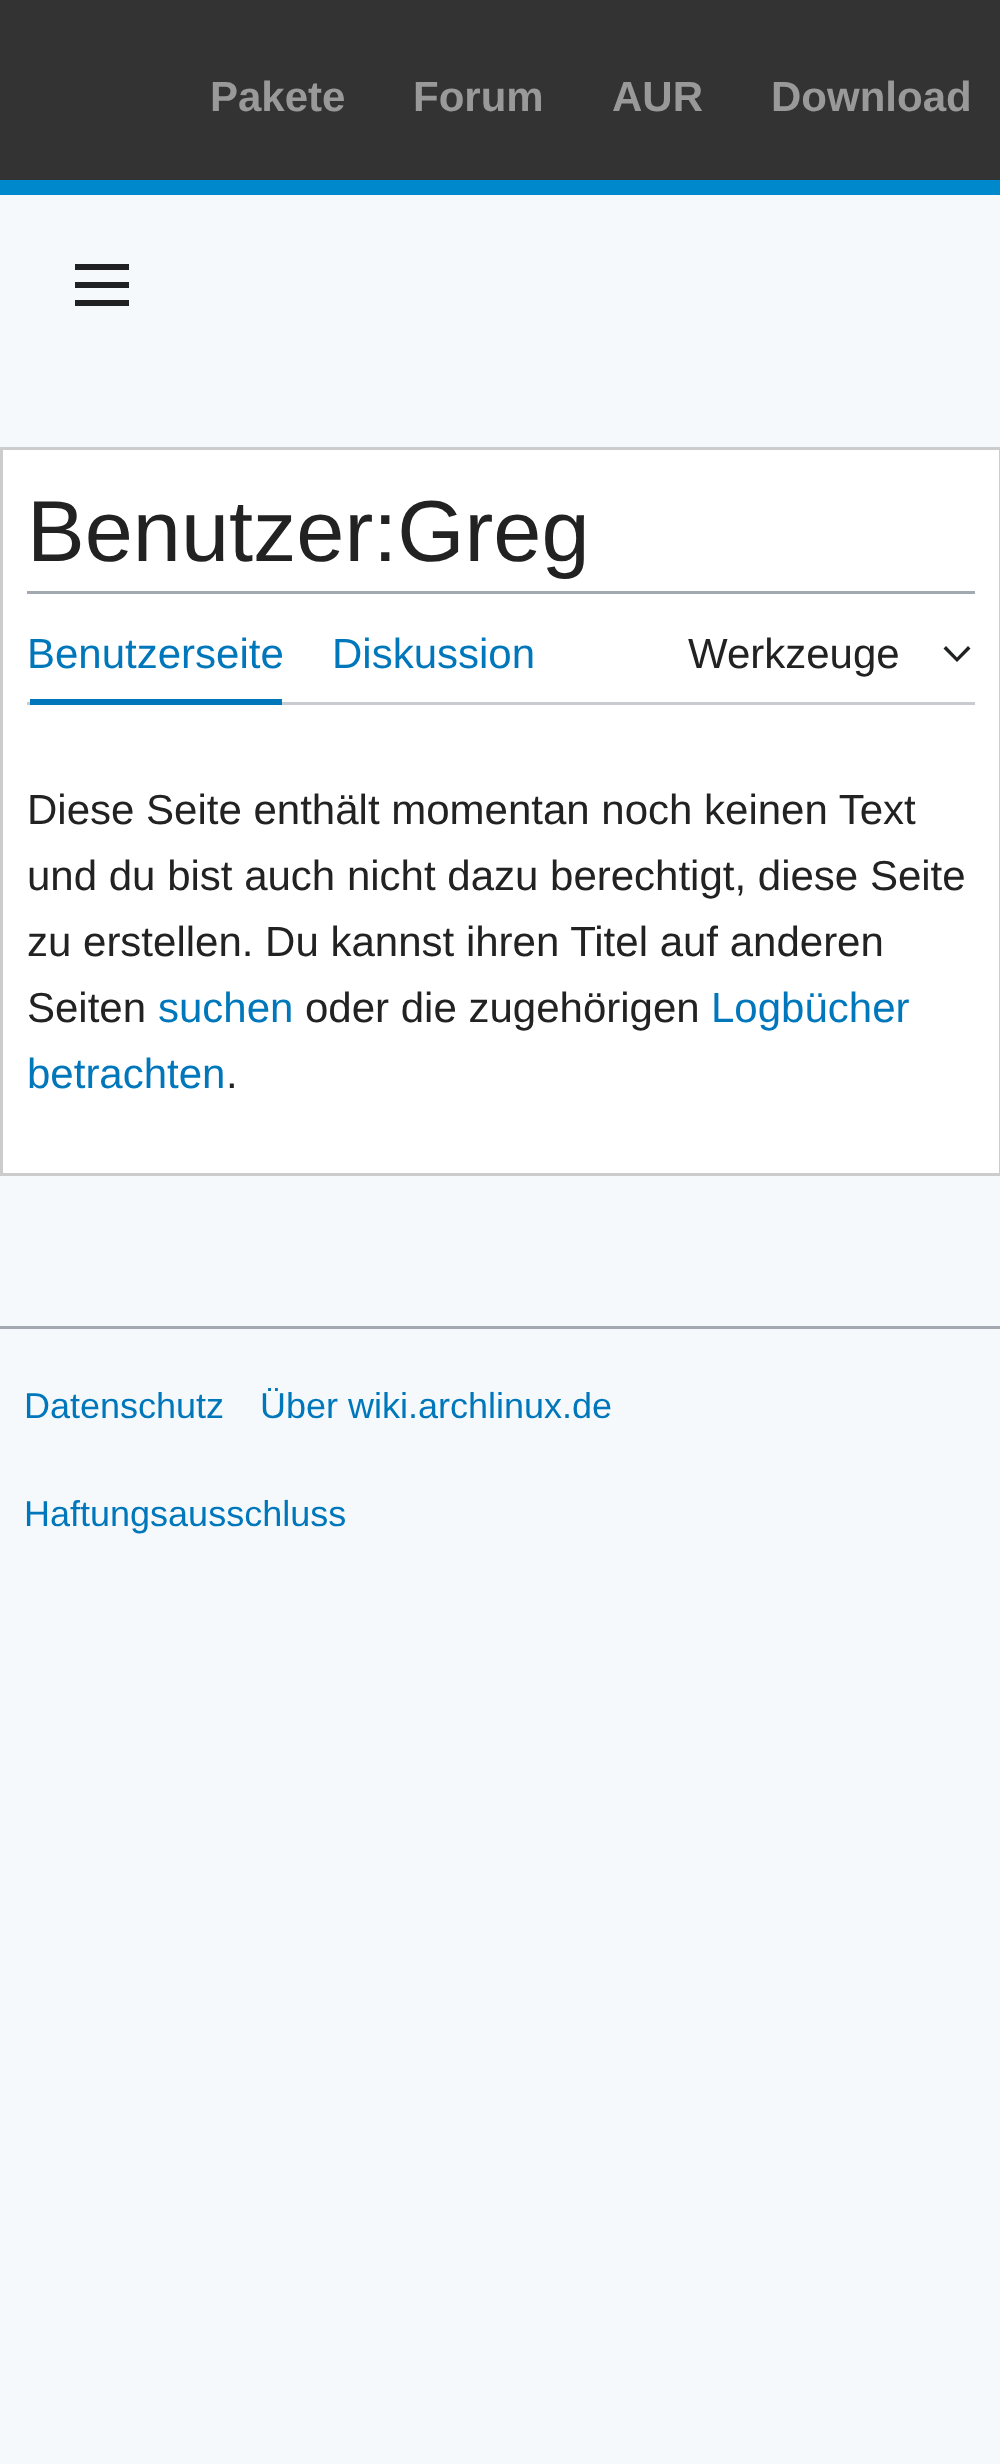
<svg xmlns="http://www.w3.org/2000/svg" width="1000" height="2464">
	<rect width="100%" height="100%" fill="#F6F9FC" />
	<rect x="0" y="0" width="1000" height="180" fill="#333333" />
	<rect x="0" y="180" width="1000" height="15" fill="#0088CC" />
	<g font-family="Liberation Sans" font-size="42" font-weight="700" fill="#999999">
		<text x="210" y="111">Pakete</text>
		<text x="413" y="111">Forum</text>
		<text x="612" y="111">AUR</text>
		<text x="771" y="111">Download</text>
	</g>
	<image x="75" y="264" width="54" height="42" href="assets/img1.png" />
	<rect x="1.5" y="448.5" width="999" height="726" fill="#FFFFFF" stroke="#CCCCCC" stroke-width="3" />
	<text x="27" y="561" font-family="Liberation Sans" font-size="86.5" fill="#222222">Benutzer:Greg</text>
	<rect x="27" y="591" width="948" height="3" fill="#A2A9B1" />
	<rect x="27" y="702" width="948" height="3" fill="#C8CCD1" />
	<rect x="30" y="699" width="252" height="6" fill="#0077BB" />
	<g font-family="Liberation Sans" font-size="42" fill="#0077BB">
		<text x="27" y="668">Benutzerseite</text>
		<text x="332" y="668">Diskussion</text>
	</g>
	<text x="688" y="668" font-family="Liberation Sans" font-size="42" fill="#222222">Werkzeuge</text>
	<path d="M968 646L957 657.5L946 646L943.5 648.5L957 662L970.5 648.5Z" fill="#202122" />
	<g font-family="Liberation Sans" font-size="42" fill="#222222">
		<text x="27" y="824">Diese Seite enthält momentan noch keinen Text</text>
		<text x="27" y="890">und du bist auch nicht dazu berechtigt, diese Seite</text>
		<text x="27" y="956">zu erstellen. Du kannst ihren Titel auf anderen</text>
		<text x="27" y="1022">Seiten</text>
	</g>
	<text x="158" y="1022" font-family="Liberation Sans" font-size="42" fill="#0077BB">suchen</text>
	<text x="305" y="1022" font-family="Liberation Sans" font-size="42" fill="#222222">oder die zugehörigen</text>
	<g font-family="Liberation Sans" font-size="42" fill="#0077BB">
		<text x="711" y="1022">Logbücher</text>
		<text x="27" y="1088">betrachten</text>
	</g>
	<text x="226" y="1088" font-family="Liberation Sans" font-size="42" fill="#222222">.</text>
	<rect x="0" y="1326" width="1000" height="3" fill="#A2A9B1" />
	<g font-family="Liberation Sans" font-size="36" fill="#0077BB">
		<text x="24" y="1418">Datenschutz</text>
		<text x="260" y="1418">Über wiki.archlinux.de</text>
		<text x="24" y="1526">Haftungsausschluss</text>
	</g>
</svg>
